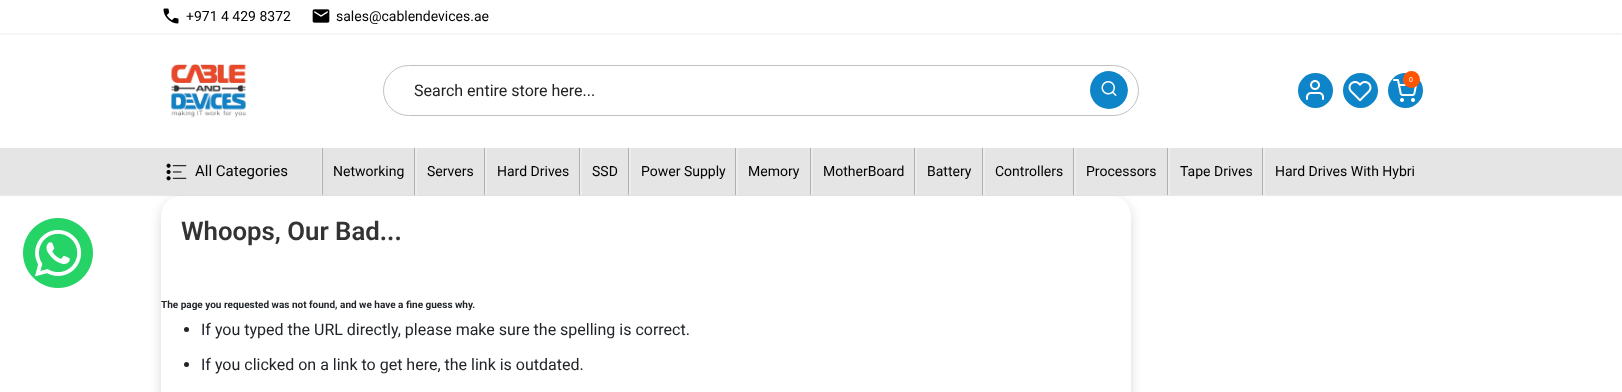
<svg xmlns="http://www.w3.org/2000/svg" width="1622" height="392">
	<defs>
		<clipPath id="clip1"><rect x="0" y="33" width="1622" height="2" /></clipPath>
		<clipPath id="clip2"><rect x="394" y="71" width="734" height="39" rx="19.5" /></clipPath>
	</defs>
	<rect width="100%" height="100%" fill="#FFFFFF" />
	<rect x="0" y="195" width="1622" height="1" fill="#E9E9E9" />
	<g clip-path="url(#clip1)">
		<rect x="0" y="1" width="1622" height="33" fill="#000000" fill-opacity="0.08" filter="blur(1px)" />
	</g>
	<image x="163" y="8" width="16" height="16" href="assets/img1.png" />
	<text x="186" y="21" font-family="Roboto" font-size="14" fill="#000000">+971 4 429 8372</text>
	<image x="312" y="9" width="18" height="14" href="assets/img2.png" />
	<text x="336" y="21" font-family="Roboto" font-size="14" fill="#000000">sales@cablendevices.ae</text>
	<image x="170" y="64" width="77" height="54" href="assets/img3.png" />
	<circle cx="1315.5" cy="90.5" r="17.5" fill="#0D85C8" />
	<image x="1306" y="80" width="18" height="20" href="assets/img4.png" />
	<circle cx="1360.5" cy="90.5" r="17.5" fill="#0D85C8" />
	<image x="1348" y="81" width="24" height="21" href="assets/img5.png" />
	<circle cx="1405.5" cy="90.5" r="17.5" fill="#0D85C8" />
	<image x="1393" y="79" width="24" height="23" href="assets/img6.png" />
	<circle cx="1411.5" cy="79.5" r="8.5" fill="#FF5501" />
	<text x="1409" y="82" font-family="Roboto" font-size="7" fill="#FFFFFF">0</text>
	<rect x="383.5" y="65.5" width="755" height="50" rx="25" fill="none" stroke="#C1C1C1" />
	<text x="414" y="96" font-family="Roboto" font-size="16" fill="#222222">Search entire store here...</text>
	<g clip-path="url(#clip2)">
		<circle cx="1109" cy="90" r="19" fill="#0D85C8" />
	</g>
	<image x="1101" y="81" width="16" height="15" href="assets/img7.png" />
	<rect x="161" y="200" width="970" height="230" rx="20" fill="#000000" fill-opacity="0.15" filter="blur(6px)" />
	<rect x="0" y="148" width="1622" height="47" fill="#E5E5E5" />
	<image x="166" y="163" width="21" height="18" href="assets/img8.png" />
	<text x="195" y="176" font-family="Roboto" font-size="15" fill="#000000">All Categories</text>
	<rect x="415" y="148" width="2" height="47" fill="#EDEDED" />
	<rect x="321" y="148" width="1" height="47" fill="#EDEDED" />
	<rect x="414" y="148" width="1" height="47" fill="#B0B0B0" />
	<rect x="322" y="148" width="1" height="47" fill="#B0B0B0" />
	<text x="333" y="176" font-family="Roboto" font-size="14" fill="#000000">Networking</text>
	<rect x="485" y="148" width="2" height="47" fill="#EDEDED" />
	<rect x="484" y="148" width="1" height="47" fill="#B0B0B0" />
	<text x="427" y="176" font-family="Roboto" font-size="14" fill="#000000">Servers</text>
	<rect x="580" y="148" width="2" height="47" fill="#EDEDED" />
	<rect x="579" y="148" width="1" height="47" fill="#B0B0B0" />
	<text x="497" y="176" font-family="Roboto" font-size="14" fill="#000000">Hard Drives</text>
	<rect x="629" y="148" width="2" height="47" fill="#EDEDED" />
	<rect x="628" y="148" width="1" height="47" fill="#B0B0B0" />
	<text x="592" y="176" font-family="Roboto" font-size="14" fill="#000000">SSD</text>
	<rect x="736" y="148" width="2" height="47" fill="#EDEDED" />
	<rect x="735" y="148" width="1" height="47" fill="#B0B0B0" />
	<text x="641" y="176" font-family="Roboto" font-size="14" fill="#000000">Power Supply</text>
	<rect x="811" y="148" width="2" height="47" fill="#EDEDED" />
	<rect x="810" y="148" width="1" height="47" fill="#B0B0B0" />
	<text x="748" y="176" font-family="Roboto" font-size="14" fill="#000000">Memory</text>
	<rect x="915" y="148" width="2" height="47" fill="#EDEDED" />
	<rect x="914" y="148" width="1" height="47" fill="#B0B0B0" />
	<text x="823" y="176" font-family="Roboto" font-size="14" fill="#000000">MotherBoard</text>
	<rect x="983" y="148" width="2" height="47" fill="#EDEDED" />
	<rect x="982" y="148" width="1" height="47" fill="#B0B0B0" />
	<text x="927" y="176" font-family="Roboto" font-size="14" fill="#000000">Battery</text>
	<rect x="1074" y="148" width="2" height="47" fill="#EDEDED" />
	<rect x="1073" y="148" width="1" height="47" fill="#B0B0B0" />
	<text x="995" y="176" font-family="Roboto" font-size="14" fill="#000000">Controllers</text>
	<rect x="1168" y="148" width="2" height="47" fill="#EDEDED" />
	<rect x="1167" y="148" width="1" height="47" fill="#B0B0B0" />
	<text x="1086" y="176" font-family="Roboto" font-size="14" fill="#000000">Processors</text>
	<rect x="1263" y="148" width="2" height="47" fill="#EDEDED" />
	<rect x="1262" y="148" width="1" height="47" fill="#B0B0B0" />
	<g font-family="Roboto" font-size="14" fill="#000000">
		<text x="1180" y="176">Tape Drives</text>
		<text x="1275" y="176">Hard Drives With Hybri</text>
	</g>
	<image x="23" y="218" width="70" height="70" href="assets/img9.png" />
	<rect x="161" y="196" width="970" height="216" rx="20" fill="#FFFFFF" />
	<text x="181" y="240" font-family="Roboto" font-size="25.75" font-weight="600" fill="#333333">Whoops, Our Bad...</text>
	<text x="161" y="308" font-family="Roboto" font-size="10" font-weight="700" fill="#212529">The page you requested was not found, and we have a fine guess why.</text>
	<circle cx="186.5" cy="329.5" r="2.5" fill="#212529" />
	<text x="201" y="335" font-family="Roboto" font-size="16" fill="#212529">If you typed the URL directly, please make sure the spelling is correct.</text>
	<circle cx="186.5" cy="364.5" r="2.5" fill="#212529" />
	<text x="201" y="370" font-family="Roboto" font-size="16" fill="#212529">If you clicked on a link to get here, the link is outdated.</text>
</svg>
